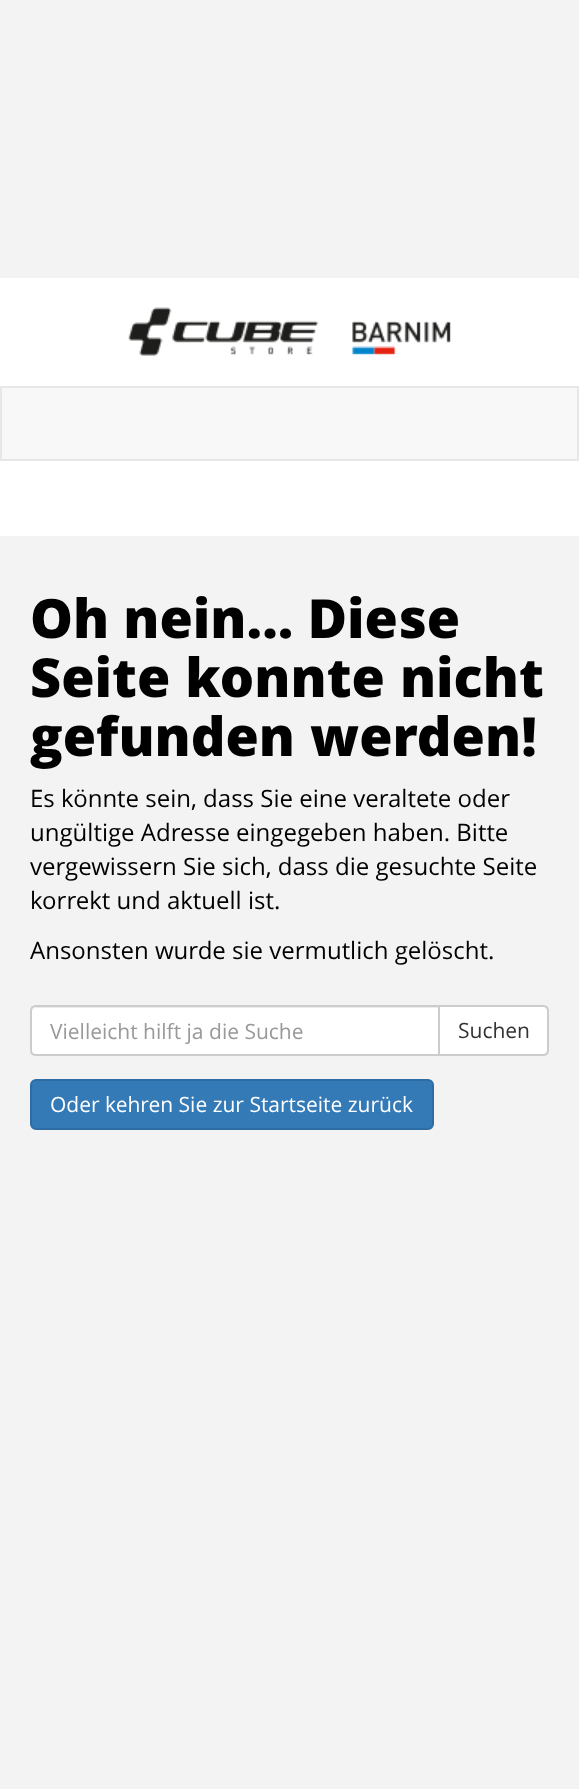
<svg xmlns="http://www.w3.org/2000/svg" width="579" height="1789">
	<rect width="100%" height="100%" fill="#F3F3F3" />
	<rect x="0" y="278" width="579" height="258" fill="#FFFFFF" />
	<image x="128" y="307" width="323" height="49" href="assets/img1.png" />
	<rect x="1" y="387" width="577" height="73" fill="#F8F8F8" stroke="#E7E7E7" stroke-width="2" />
	<g font-family="Open Sans" font-size="54" font-weight="800" fill="#000000">
		<text x="30" y="638">Oh nein... Diese</text>
		<text x="30" y="697" word-spacing="1">Seite konnte nicht</text>
		<text x="30" y="756" word-spacing="1">gefunden werden!</text>
	</g>
	<g font-family="Open Sans" font-size="24" fill="#000000">
		<text x="30" y="807">Es könnte sein, dass Sie eine veraltete oder</text>
		<text x="30" y="841">ungültige Adresse eingegeben haben. Bitte</text>
		<text x="30" y="875">vergewissern Sie sich, dass die gesuchte Seite</text>
		<text x="30" y="909">korrekt und aktuell ist.</text>
		<text x="30" y="959">Ansonsten wurde sie vermutlich gelöscht.</text>
	</g>
	<path d="M36 1005H440V1056H36C32.5 1056 30 1053.5 30 1050V1011C30 1007.5 32.5 1005 36 1005Z" fill="#FFFFFF" />
	<path d="M36 1008H438V1007H37C34 1007 32 1009 32 1012C32 1010 34 1008 36 1008Z" fill="#ECECEC" />
	<path d="M36 1006H439V1055H36C33 1055 31 1053 31 1050V1011C31 1008 33 1006 36 1006Z" fill="none" stroke="#CCCCCC" stroke-width="2" />
	<text x="50" y="1039" font-family="Open Sans" font-size="21" fill="#999999">Vielleicht hilft ja die Suche</text>
	<path d="M439 1006H543C546 1006 548 1008 548 1011V1050C548 1053 546 1055 543 1055H439Z" fill="#FFFFFF" stroke="#CCCCCC" stroke-width="2" />
	<text x="458" y="1038" font-family="Open Sans" font-size="21" fill="#333333">Suchen</text>
	<rect x="31" y="1080" width="402" height="49" rx="5" fill="#337AB7" stroke="#2E6DA4" stroke-width="2" />
	<text x="50" y="1112" font-family="Open Sans" font-size="21" fill="#FFFFFF">Oder kehren Sie zur Startseite zurück</text>
</svg>
